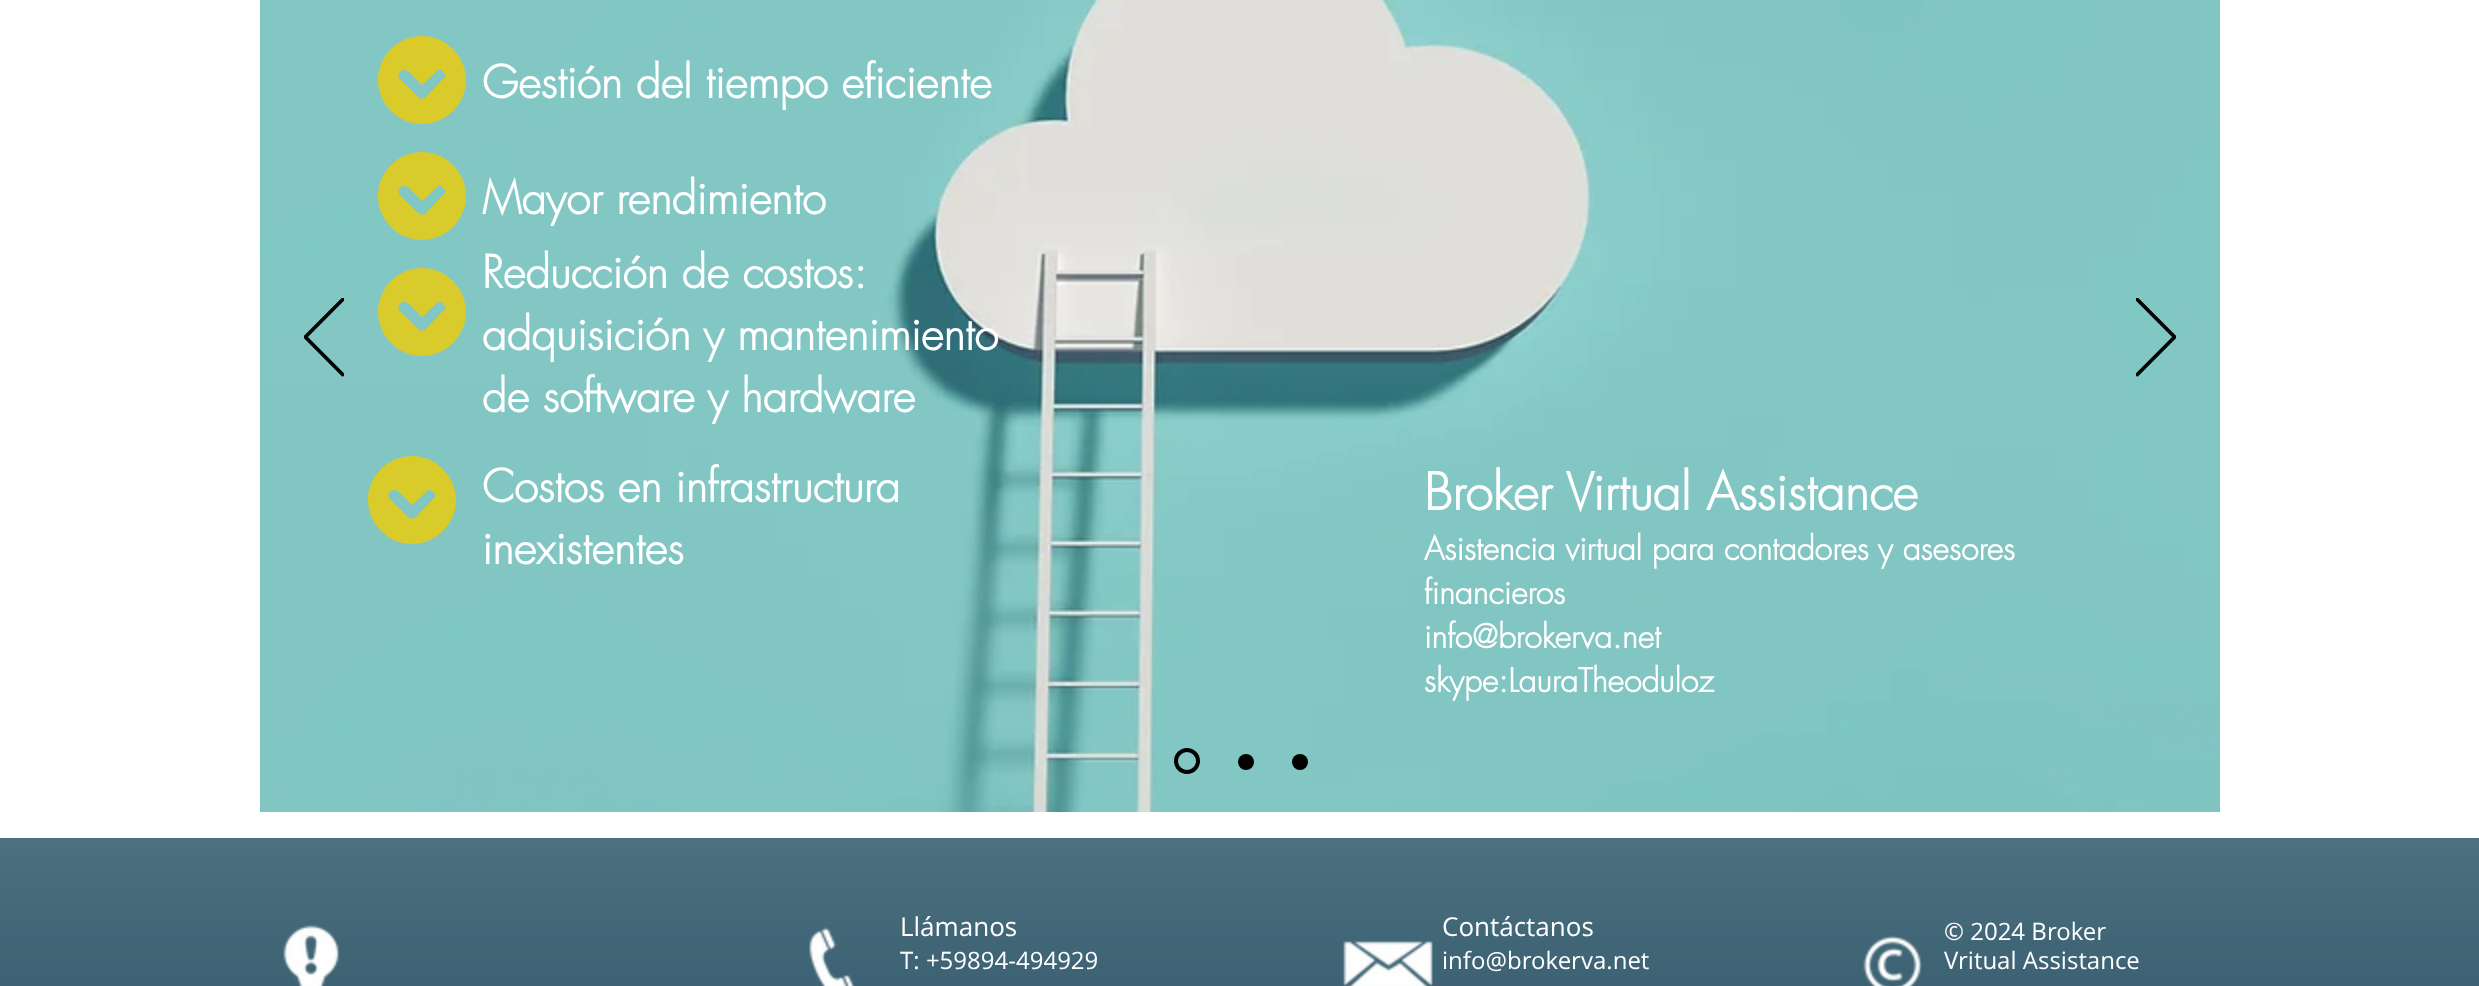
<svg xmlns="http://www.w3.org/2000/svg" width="2479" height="986">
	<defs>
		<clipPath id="clip1"><rect x="304" y="298" width="40" height="80" /></clipPath>
		<clipPath id="clip2"><rect x="2136" y="298" width="40" height="80" /></clipPath>
	</defs>
	<rect width="100%" height="100%" fill="#FFFFFF" />
	<image x="260" y="0" width="1960" height="812" href="assets/img1.png" />
	<g clip-path="url(#clip1)">
		<path d="M342.5 375.5L304 337L342.5 298.5L344 299.5L306.5 337L344 374.5Z" fill="none" stroke="#000000" stroke-width="1.9" />
	</g>
	<path d="M466 80C466 56 446 36 422 36C398 36 378 56 378 80C378 104 398 124 422 124C446 124 466 104 466 80ZM418 97L406 85C403 82 394 76 401 71C406 68 410 73 413 76L422 85L436 72C438 69 441 69 443 72C446 74 446 77 443 79L426 97C424 99 420 99 418 97Z" fill="#DACB2A" />
	<text x="482" y="98" font-family="futura" font-size="44" font-weight="700" fill="#FFFFFF">Gestión del tiempo eficiente</text>
	<path d="M466 196C466 172 446 152 422 152C398 152 378 172 378 196C378 220 398 240 422 240C446 240 466 220 466 196ZM418 213L406 201C403 198 394 192 401 187C406 184 410 189 413 192L422 201L436 188C438 185 441 185 443 188C446 190 446 193 443 195L426 213C424 215 420 215 418 213Z" fill="#F1CC01" fill-opacity="0.79" />
	<text x="482" y="214" font-family="futura" font-size="44" font-weight="700" fill="#FFFFFF">Mayor rendimiento</text>
	<path d="M466 312C466 288 446 268 422 268C398 268 378 288 378 312C378 336 398 356 422 356C446 356 466 336 466 312ZM418 329L406 317C403 314 394 308 401 303C406 300 410 305 413 308L422 317L436 304C438 301 441 301 443 304C446 306 446 309 443 311L426 329C424 331 420 331 418 329Z" fill="#F1CC01" fill-opacity="0.79" />
	<g font-family="futura" font-size="44" font-weight="700" fill="#FFFFFF">
		<text x="482" y="288">Reducción de costos:</text>
		<text x="482" y="350">adquisición y mantenimiento</text>
		<text x="482" y="412">de software y hardware</text>
	</g>
	<path d="M456 500C456 476 436 456 412 456C388 456 368 476 368 500C368 524 388 544 412 544C436 544 456 524 456 500ZM408 517L396 505C393 502 384 496 391 491C396 488 400 493 403 496L412 505L426 492C428 489 431 489 433 492C436 494 436 497 433 499L416 517C414 519 410 519 408 517Z" fill="#D9CB2A" />
	<g font-family="futura" font-size="44" font-weight="700" fill="#FFFFFF">
		<text x="482" y="502">Costos en infrastructura</text>
		<text x="482" y="564">inexistentes</text>
	</g>
	<text x="1424" y="510" font-family="futura" font-size="50" font-weight="700" fill="#FFFFFF">Broker Virtual Assistance</text>
	<g font-family="futura" font-size="32" font-weight="700" fill="#FFFFFF">
		<text x="1424" y="560">Asistencia virtual para contadores y asesores</text>
		<text x="1424" y="604">financieros</text>
		<text x="1424" y="648">info@brokerva.net</text>
		<text x="1424" y="692">skype:LauraTheoduloz</text>
	</g>
	<g clip-path="url(#clip2)">
		<path d="M2137.5 375.5L2176 337L2137.5 298.5L2136 299.5L2173.5 337L2136 374.5Z" fill="none" stroke="#000000" stroke-width="1.9" />
	</g>
	<circle cx="1187" cy="761" r="11" fill="none" stroke="#000000" stroke-width="4" />
	<circle cx="1246" cy="762" r="8" fill="#000000" />
	<circle cx="1300" cy="762" r="8" fill="#000000" />
	<rect x="0" y="838" width="2479" height="148" fill="#103F54" />
	<image x="0" y="838" width="2479" height="148" href="assets/img2.png" />
	<image x="283" y="925" width="56" height="61" href="assets/img3.png" />
	<image x="809" y="927" width="46" height="59" href="assets/img4.png" />
	<text x="900" y="936" font-family="Open Sans" font-size="26" fill="#FFFFFF">Llámanos</text>
	<text x="900" y="969" font-family="Open Sans" font-size="24" fill="#FFFFFF">T: +59894-494929</text>
	<image x="1343" y="940" width="90" height="46" href="assets/img5.png" />
	<text x="1442" y="936" font-family="Open Sans" font-size="26" fill="#FFFFFF">Contáctanos</text>
	<text x="1442" y="969" font-family="Open Sans" font-size="24" fill="#FFFFFF">info@brokerva.net</text>
	<image x="1863" y="935" width="59" height="51" href="assets/img6.png" />
	<g font-family="Open Sans" font-size="24" fill="#FFFFFF">
		<text x="1944" y="940">© 2024 Broker</text>
		<text x="1944" y="969">Vritual Assistance</text>
	</g>
</svg>
